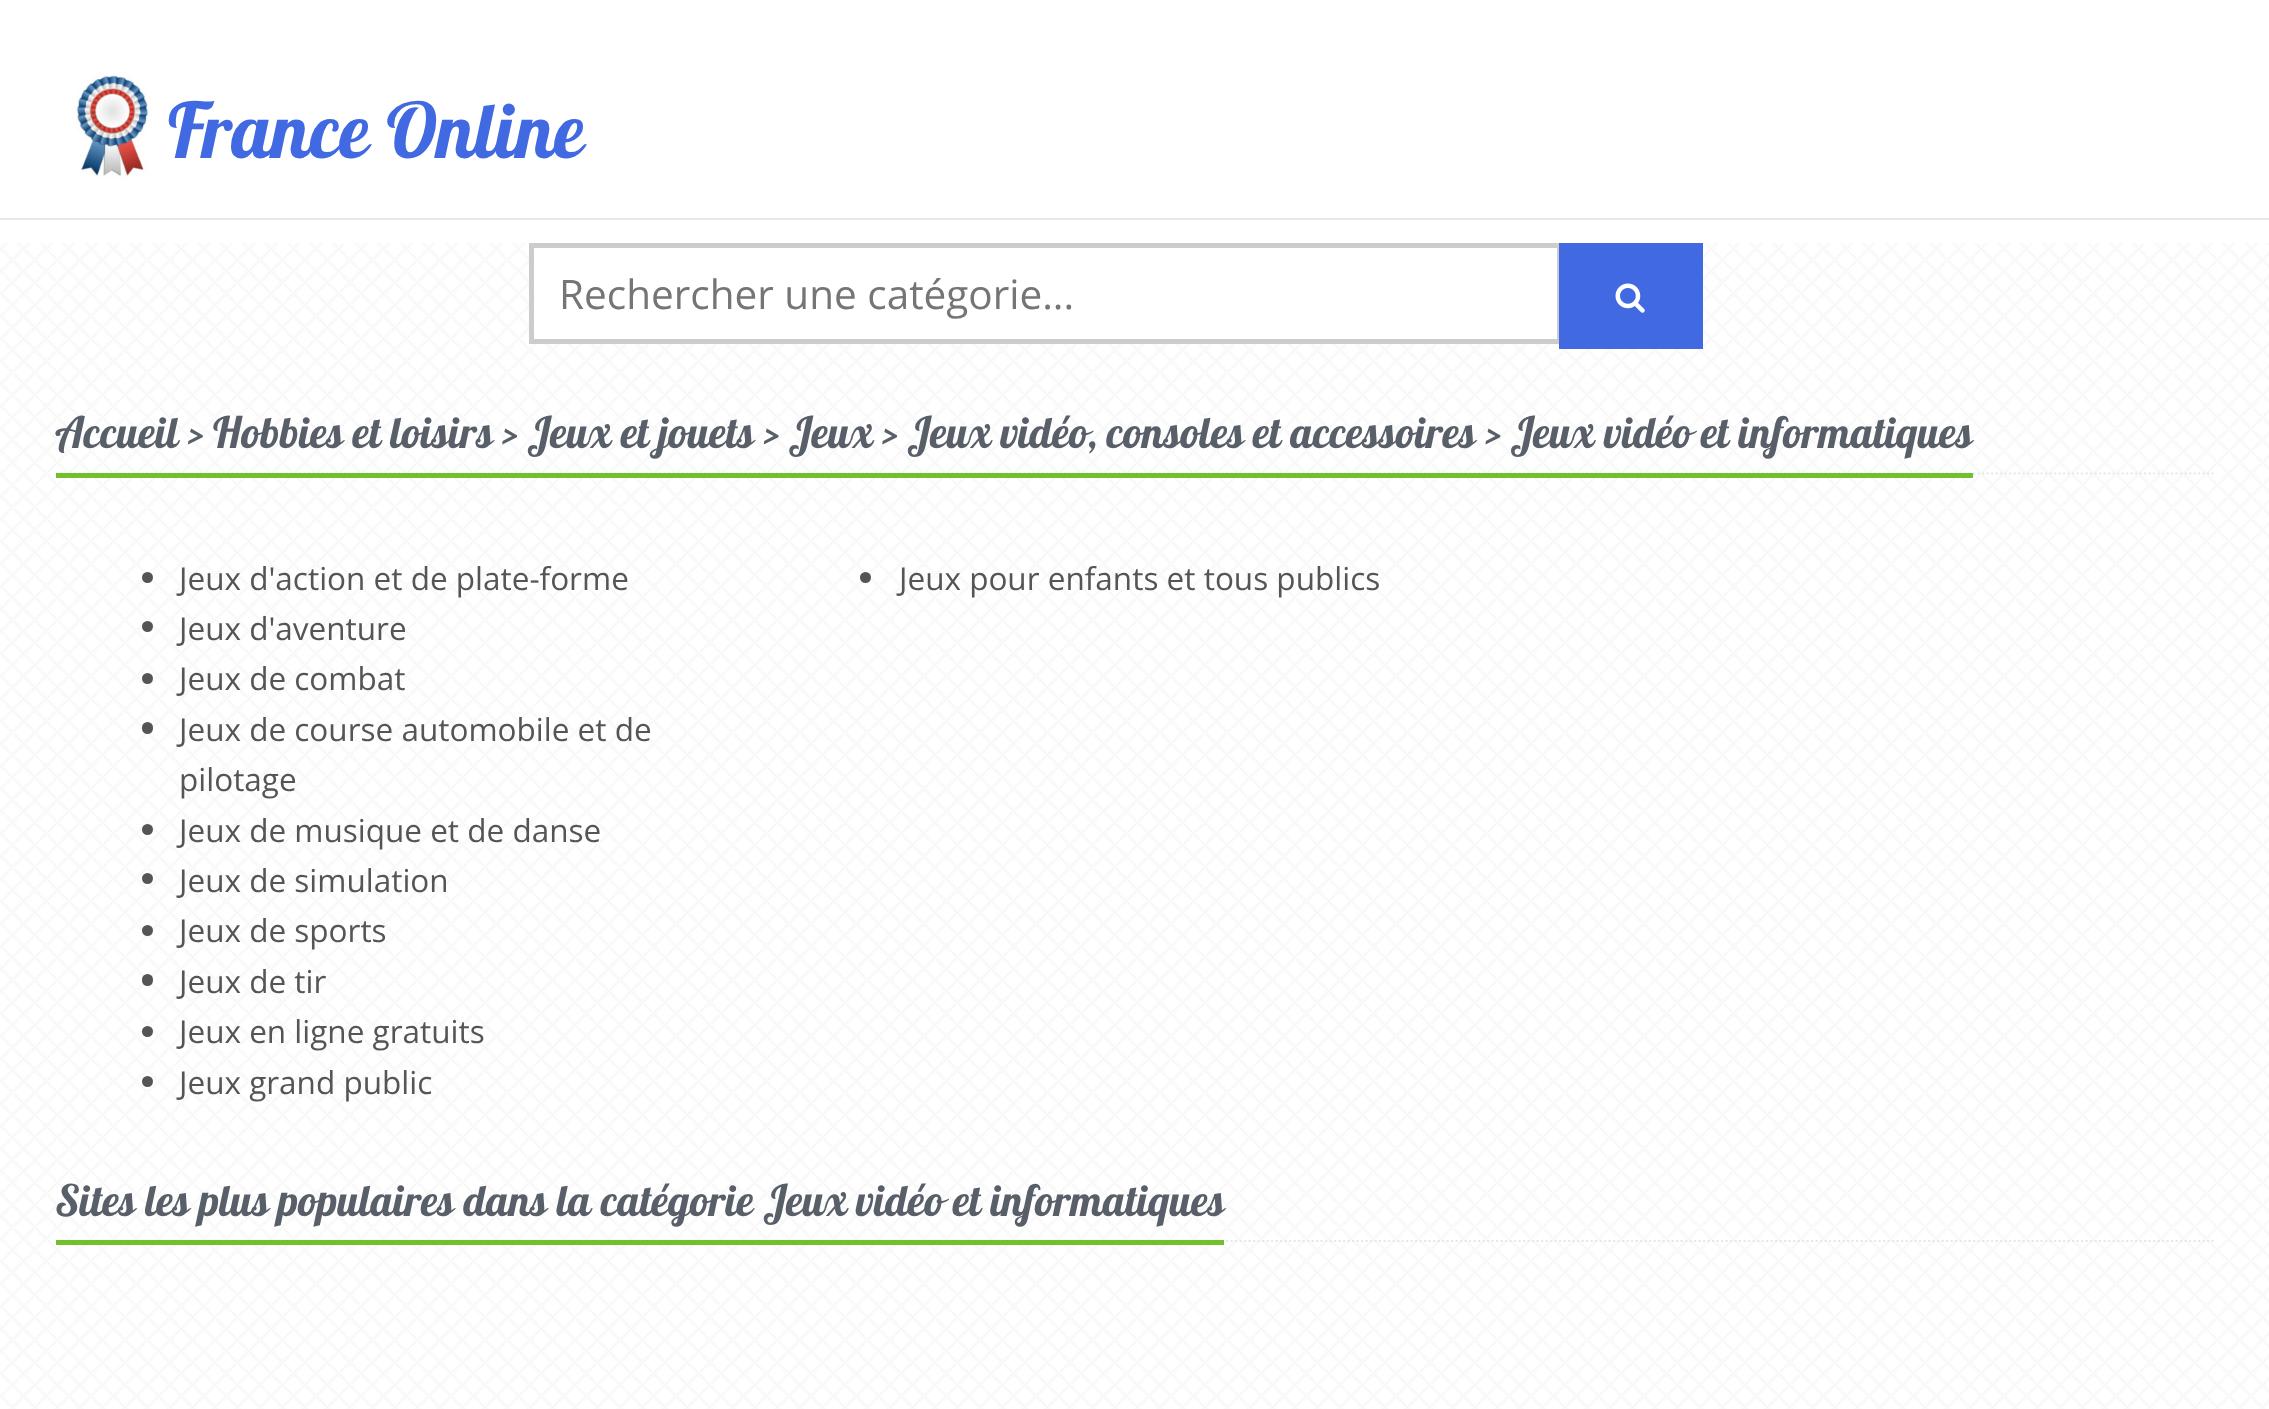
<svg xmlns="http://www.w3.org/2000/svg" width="2269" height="1409">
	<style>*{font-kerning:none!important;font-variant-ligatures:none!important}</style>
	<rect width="100%" height="100%" fill="#FFFFFF" />
	<image x="0" y="243" width="2269" height="1166" href="assets/img1.png" />
	<rect x="0" y="218" width="2269" height="2" fill="#E7E7E7" />
	<image x="75" y="75" width="74" height="104" href="assets/img2.png" />
	<text x="168" y="158" font-family="Lobster" font-size="76.5" fill="#4169E1">France Online</text>
	<rect x="531.5" y="245.5" width="1028" height="96" fill="#FFFFFF" stroke="#CCCCCC" stroke-width="5" />
	<text x="559" y="309" font-family="Open Sans" font-size="40.5" fill="#757575">Rechercher une catégorie...</text>
	<rect x="1559" y="243" width="144" height="106" fill="#4169E1" />
	<image x="1615" y="283" width="30" height="30" href="assets/img3.png" />
	<path d="M56 473.5H2216" fill="none" stroke="#E4E9F0" stroke-width="2.2" stroke-dasharray="2.25 2.25" />
	<rect x="56" y="473" width="1917" height="5" fill="#72C02C" />
	<text x="55" y="448" font-family="Lobster" font-size="43.2" fill="#585F69">Accueil &gt; Hobbies et loisirs</text>
	<text x="502" y="448" font-family="Lobster" font-size="43.2" fill="#585F69">&gt; Jeux</text>
	<text x="621" y="448" font-family="Lobster" font-size="43.2" fill="#585F69">et jouets &gt; Jeux</text>
	<text x="882" y="448" font-family="Lobster" font-size="43.2" fill="#585F69">&gt; Jeux vidéo, consoles</text>
	<text x="1253" y="448" font-family="Lobster" font-size="43.2" fill="#585F69">et accessoires &gt; Jeux</text>
	<text x="1604" y="448" font-family="Lobster" font-size="43.2" fill="#585F69">vidéo et informatiques</text>
	<circle cx="147.5" cy="577.5" r="5.5" fill="#555555" />
	<text x="179" y="590" font-family="Open Sans" font-size="31.5" fill="#555555">Jeux d'action et de plate-forme</text>
	<circle cx="147.5" cy="626.5" r="5.5" fill="#555555" />
	<text x="179" y="640" font-family="Open Sans" font-size="31.5" fill="#555555">Jeux d'aventure</text>
	<circle cx="147.5" cy="678.5" r="5.5" fill="#555555" />
	<text x="179" y="690" font-family="Open Sans" font-size="31.5" fill="#555555">Jeux de combat</text>
	<rect x="142" y="722" width="11" height="12" rx="5.5" fill="#555555" />
	<g font-family="Open Sans" font-size="31.5" fill="#555555">
		<text x="179" y="741">Jeux de course automobile et de</text>
		<text x="179" y="791">pilotage</text>
	</g>
	<circle cx="147.5" cy="829.5" r="5.5" fill="#555555" />
	<text x="179" y="842" font-family="Open Sans" font-size="31.5" fill="#555555">Jeux de musique et de danse</text>
	<circle cx="147.5" cy="878.5" r="5.5" fill="#555555" />
	<text x="179" y="892" font-family="Open Sans" font-size="31.5" fill="#555555">Jeux de simulation</text>
	<circle cx="147.5" cy="930.5" r="5.5" fill="#555555" />
	<text x="179" y="942" font-family="Open Sans" font-size="31.5" fill="#555555">Jeux de sports</text>
	<rect x="142" y="974" width="11" height="12" rx="5.5" fill="#555555" />
	<text x="179" y="993" font-family="Open Sans" font-size="31.5" fill="#555555">Jeux de tir</text>
	<circle cx="147.5" cy="1031.5" r="5.5" fill="#555555" />
	<text x="179" y="1043" font-family="Open Sans" font-size="31.5" fill="#555555">Jeux en ligne gratuits</text>
	<circle cx="147.5" cy="1081.5" r="5.5" fill="#555555" />
	<text x="179" y="1094" font-family="Open Sans" font-size="31.5" fill="#555555">Jeux grand public</text>
	<circle cx="865.5" cy="577.5" r="5.5" fill="#555555" />
	<text x="899" y="590" font-family="Open Sans" font-size="31.5" fill="#555555">Jeux pour enfants et tous publics</text>
	<path d="M56 1241H2216" fill="none" stroke="#E4E9F0" stroke-width="2.2" stroke-dasharray="2.25 2.25" />
	<rect x="56" y="1240" width="1168" height="5" fill="#72C02C" />
	<text x="55" y="1216" font-family="Lobster" font-size="43.2" fill="#585F69">Sites les plus</text>
	<text x="278" y="1216" font-family="Lobster" font-size="43.2" fill="#585F69">populaires dans la</text>
	<text x="601" y="1216" font-family="Lobster" font-size="43.2" fill="#585F69">catégorie Jeux</text>
	<text x="856" y="1216" font-family="Lobster" font-size="43.2" fill="#585F69">vidéo et informatiques</text>
</svg>
